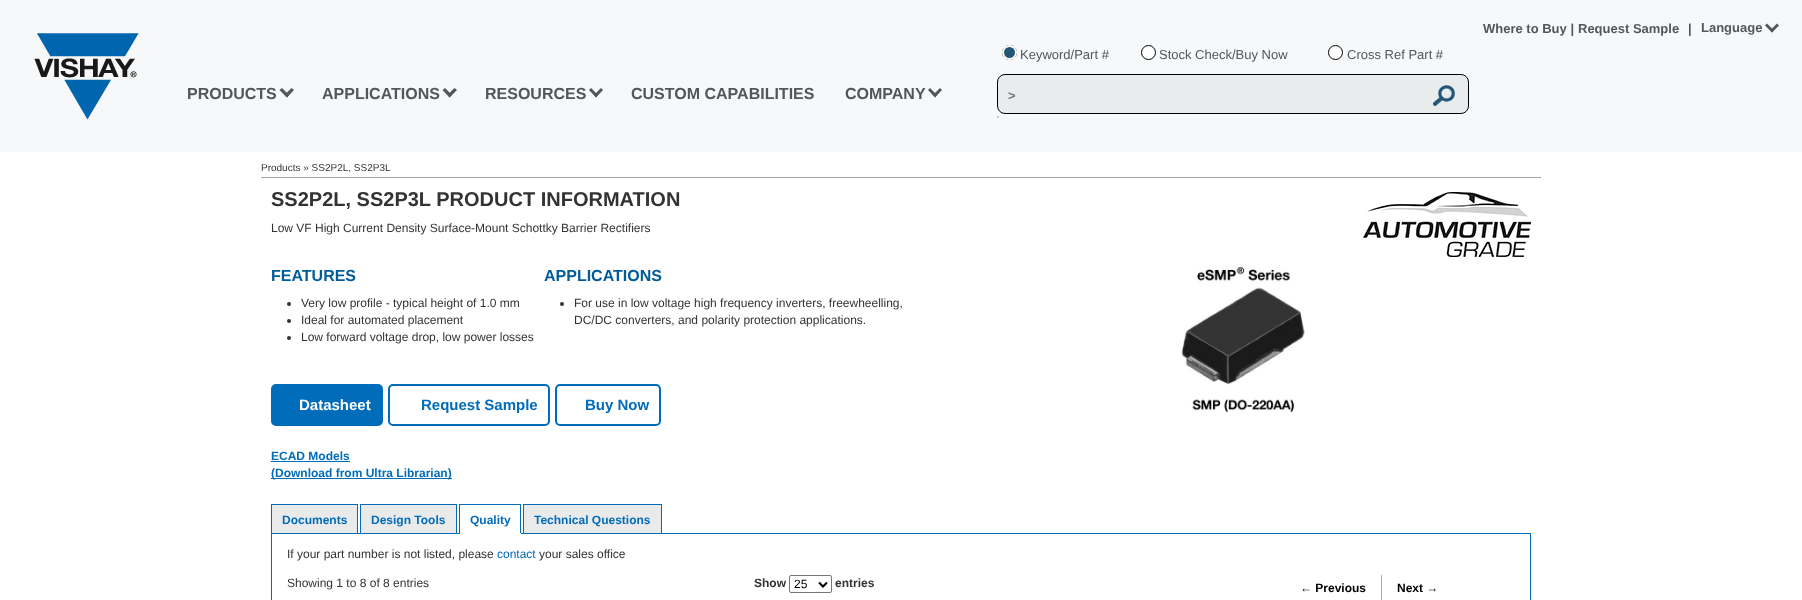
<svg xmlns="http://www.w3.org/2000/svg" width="1802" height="600">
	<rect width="100%" height="100%" fill="#FFFFFF" />
	<rect x="0" y="0" width="1802" height="152" fill="#F6F8F9" />
	<g font-family="Liberation Sans" font-size="13" font-weight="700" fill="#53565A">
		<text x="1483" y="33">Where to Buy |</text>
		<text x="1578" y="33">Request Sample</text>
		<text x="1688" y="33">|</text>
		<text x="1701" y="32">Language</text>
	</g>
	<path d="M1777 23.5L1779 25.5L1772 32.5L1770 30.5Z" fill="#53565A" />
	<path d="M1767 23.5L1774 30.5L1772 32.5L1765 25.5Z" fill="#53565A" />
	<image x="34" y="33" width="105" height="87" href="assets/img1.png" />
	<text x="187" y="99" font-family="Liberation Sans" font-size="16" font-weight="700" fill="#53565A">PRODUCTS</text>
	<path d="M291.5 88L294 90L287 97.5L284.5 95Z" fill="#53565A" />
	<path d="M282 88L289 95L287 97.5L279.5 90Z" fill="#53565A" />
	<text x="322" y="99" font-family="Liberation Sans" font-size="16" font-weight="700" fill="#53565A">APPLICATIONS</text>
	<path d="M454.5 88L457 90L449.5 97.5L447.5 95Z" fill="#53565A" />
	<path d="M445 88L452 95L449.5 97.5L442.5 90Z" fill="#53565A" />
	<text x="485" y="99" font-family="Liberation Sans" font-size="16" font-weight="700" fill="#53565A">RESOURCES</text>
	<path d="M601 88L603 90L596 97.5L594 95Z" fill="#53565A" />
	<path d="M591 88L598 95L596 97.5L589 90Z" fill="#53565A" />
	<g font-family="Liberation Sans" font-size="16" font-weight="700" fill="#53565A">
		<text x="631" y="99">CUSTOM CAPABILITIES</text>
		<text x="845" y="99">COMPANY</text>
	</g>
	<path d="M940 88L942 90L935 97.5L933 95Z" fill="#53565A" />
	<path d="M930 88L937 95L935 97.5L928 90Z" fill="#53565A" />
	<circle cx="1009.5" cy="52.5" r="7" fill="none" stroke="#000000" />
	<circle cx="1009.5" cy="52.5" r="6.5" fill="#225678" stroke="#FFFFFF" stroke-width="2" />
	<text x="1020" y="59" font-family="Liberation Sans" font-size="13" fill="#53565A">Keyword/Part #</text>
	<circle cx="1148.5" cy="52.5" r="7" fill="#FFFFFF" stroke="#000000" />
	<text x="1159" y="59" font-family="Liberation Sans" font-size="13" fill="#53565A">Stock Check/Buy Now</text>
	<circle cx="1335.5" cy="52.5" r="7" fill="#FFFFFF" stroke="#000000" />
	<text x="1347" y="59" font-family="Liberation Sans" font-size="13" fill="#53565A">Cross Ref Part #</text>
	<rect x="997.5" y="74.5" width="471" height="39" rx="7.5" fill="#E8ECED" stroke="#000000" />
	<text x="1008" y="100" font-family="Liberation Sans" font-size="13" font-weight="700" fill="#757575">&gt;</text>
	<image x="1433" y="85" width="22" height="21" href="assets/img2.png" />
	<rect x="997" y="116" width="2" height="2" fill="#AED0EA" />
	<rect x="261" y="177" width="1280" height="1" fill="#A2A2A2" />
	<text x="261" y="171" font-family="Liberation Sans" font-size="10" fill="#333333">Products » SS2P2L, SS2P3L</text>
	<text x="271" y="206" font-family="Liberation Sans" font-size="20" font-weight="700" fill="#333333">SS2P2L, SS2P3L PRODUCT INFORMATION</text>
	<text x="271" y="232" font-family="Liberation Sans" font-size="12" fill="#333333">Low VF High Current Density Surface-Mount Schottky Barrier Rectifiers</text>
	<text x="271" y="281" font-family="Liberation Sans" font-size="16" font-weight="700" fill="#005C99">FEATURES</text>
	<circle cx="289" cy="304" r="2" fill="#333333" />
	<text x="301" y="307" font-family="Liberation Sans" font-size="12" fill="#333333">Very low profile - typical height of 1.0 mm</text>
	<circle cx="289" cy="321" r="2" fill="#333333" />
	<text x="301" y="324" font-family="Liberation Sans" font-size="12" fill="#333333">Ideal for automated placement</text>
	<circle cx="289" cy="338" r="2" fill="#333333" />
	<text x="301" y="341" font-family="Liberation Sans" font-size="12" fill="#333333">Low forward voltage drop, low power losses</text>
	<text x="544" y="281" font-family="Liberation Sans" font-size="16" font-weight="700" fill="#005C99">APPLICATIONS</text>
	<circle cx="562" cy="304" r="2" fill="#333333" />
	<g font-family="Liberation Sans" font-size="12" fill="#333333">
		<text x="574" y="307">For use in low voltage high frequency inverters, freewheelling,</text>
		<text x="574" y="324">DC/DC converters, and polarity protection applications.</text>
	</g>
	<image x="1363" y="192" width="168" height="65" href="assets/img3.png" />
	<image x="1180" y="266" width="125" height="146" href="assets/img4.png" />
	<rect x="272" y="385" width="110" height="40" rx="4" fill="#006CBA" stroke="#006CBA" stroke-width="2" />
	<text x="299" y="410" font-family="Liberation Sans" font-size="15" font-weight="700" fill="#FFFFFF">Datasheet</text>
	<rect x="389" y="385" width="160" height="40" rx="4" fill="none" stroke="#006CBA" stroke-width="2" />
	<text x="421" y="410" font-family="Liberation Sans" font-size="15" font-weight="700" fill="#006CBA">Request Sample</text>
	<rect x="556" y="385" width="104" height="40" rx="4" fill="none" stroke="#006CBA" stroke-width="2" />
	<text x="585" y="410" font-family="Liberation Sans" font-size="15" font-weight="700" fill="#006CBA">Buy Now</text>
	<text x="271" y="460" font-family="Liberation Sans" font-size="12" font-weight="700" fill="#006CBA">ECAD Models</text>
	<rect x="271" y="461" width="79" height="1" fill="#006CBA" />
	<rect x="271" y="478" width="181" height="1" fill="#006CBA" />
	<text x="271" y="477" font-family="Liberation Sans" font-size="12" font-weight="700" fill="#006CBA">(Download from Ultra Librarian)</text>
	<rect x="271.5" y="533.5" width="1259" height="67" fill="none" stroke="#016CBA" />
	<rect x="271.5" y="504.5" width="86" height="29" fill="#EAEAEA" stroke="#016CBA" />
	<text x="282" y="524" font-family="Liberation Sans" font-size="12" font-weight="700" fill="#006CBA">Documents</text>
	<rect x="360.5" y="504.5" width="96" height="29" fill="#EAEAEA" stroke="#016CBA" />
	<text x="371" y="524" font-family="Liberation Sans" font-size="12" font-weight="700" fill="#006CBA">Design Tools</text>
	<rect x="459" y="504" width="62" height="1" fill="#016CBA" />
	<rect x="520" y="504" width="1" height="30" fill="#016CBA" />
	<rect x="459" y="533" width="62" height="1" fill="#FFFFFF" />
	<rect x="459" y="504" width="1" height="30" fill="#016CBA" />
	<text x="470" y="524" font-family="Liberation Sans" font-size="12" font-weight="700" fill="#006CBA">Quality</text>
	<rect x="523.5" y="504.5" width="138" height="29" fill="#EAEAEA" stroke="#016CBA" />
	<text x="534" y="524" font-family="Liberation Sans" font-size="12" font-weight="700" fill="#006CBA">Technical Questions</text>
	<text x="287" y="558" font-family="Liberation Sans" font-size="12" fill="#333333">If your part number is not listed, please</text>
	<text x="497" y="558" font-family="Liberation Sans" font-size="12" fill="#006CBA">contact</text>
	<g font-family="Liberation Sans" font-size="12" fill="#333333">
		<text x="539" y="558">your sales office</text>
		<text x="287" y="587">Showing 1 to 8 of 8 entries</text>
	</g>
	<text x="754" y="587" font-family="Liberation Sans" font-size="12" font-weight="700" fill="#333333">Show</text>
	<rect x="789.5" y="575.5" width="42" height="17" rx="1.5" fill="none" stroke="#767676" />
	<path d="M819 582.5L823 586.5L827 582.5" fill="none" stroke="#000000" stroke-width="2" />
	<text x="794" y="588" font-family="Liberation Sans" font-size="12" fill="#000000">25</text>
	<text x="835" y="587" font-family="Liberation Sans" font-size="12" font-weight="700" fill="#333333">entries</text>
	<rect x="1381" y="575" width="1" height="25" fill="#AAAAAA" />
	<g font-family="Liberation Sans" font-size="12" font-weight="700" fill="#000000">
		<text x="1300" y="592">← Previous</text>
		<text x="1397" y="592">Next →</text>
	</g>
</svg>
